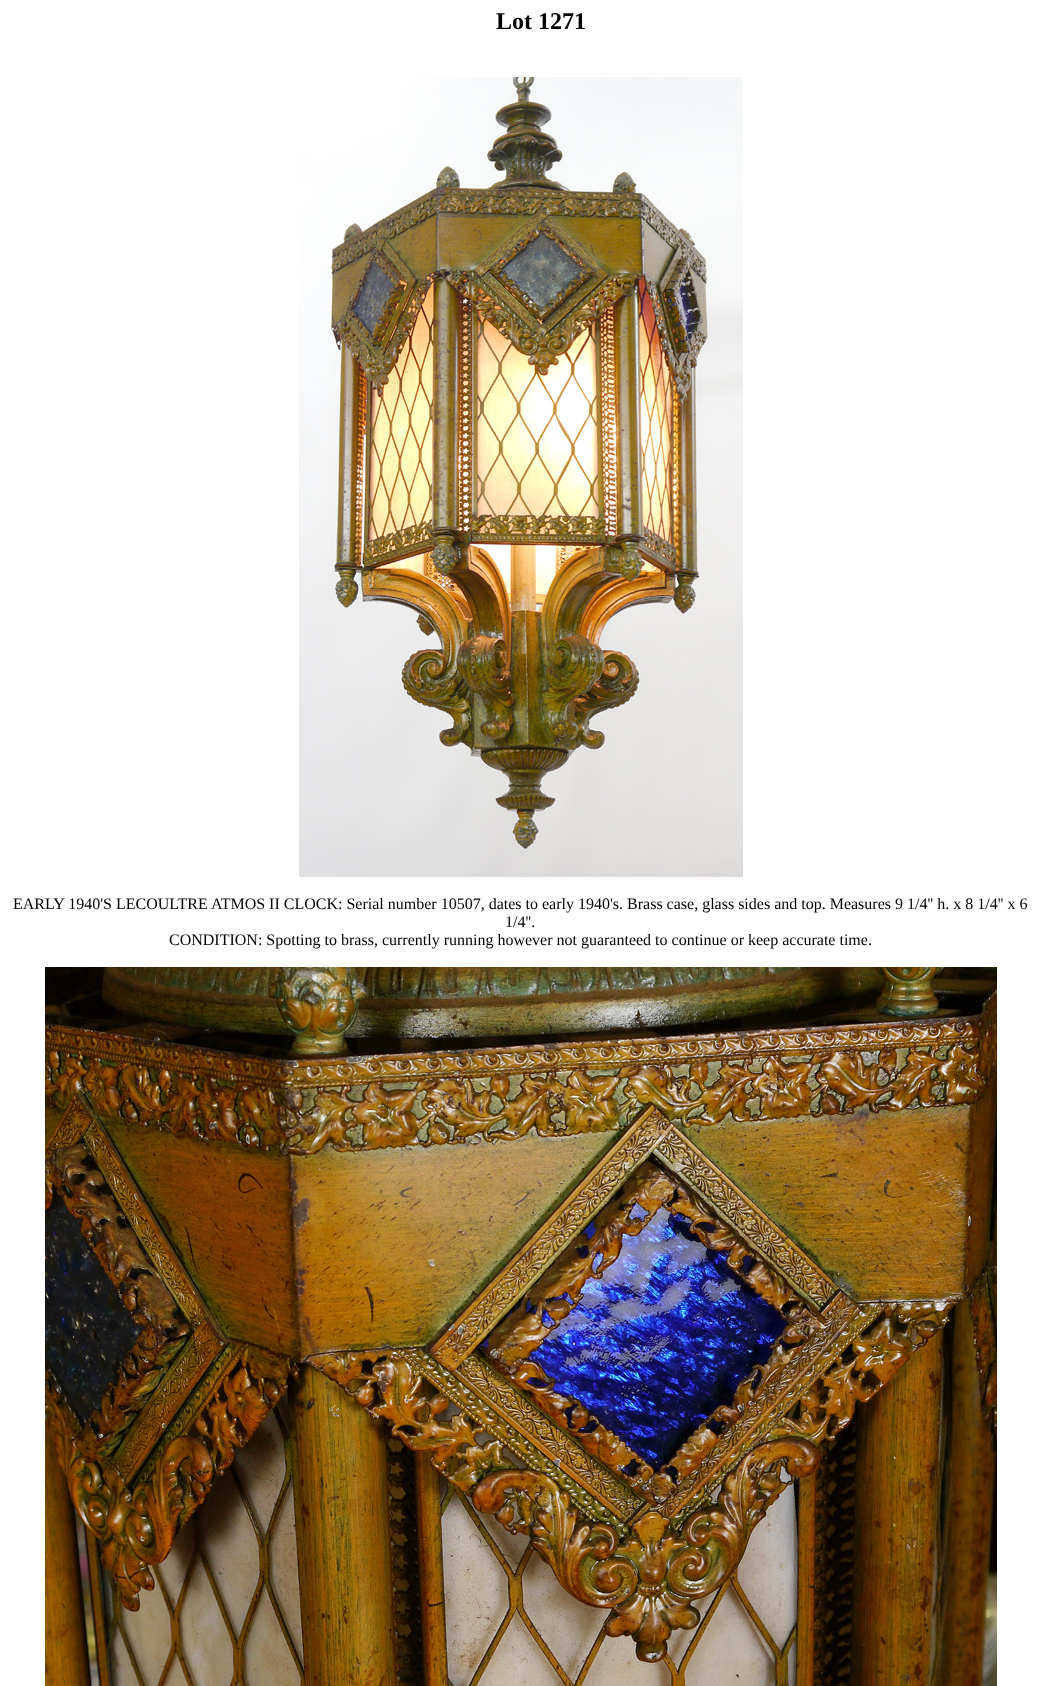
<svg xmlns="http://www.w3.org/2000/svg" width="1041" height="1686">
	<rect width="100%" height="100%" fill="#FFFFFF" />
	<text x="496" y="29" font-family="Liberation Serif" font-size="24" font-weight="700" fill="#000000">Lot 1271</text>
	<image x="299" y="77" width="444" height="800" href="assets/img1.png" />
	<g font-family="Liberation Serif" font-size="16" fill="#000000">
		<text x="13" y="909">EARLY 1940'S LECOULTRE ATMOS II CLOCK: Serial number 10507, dates to early 1940's. Brass case, glass sides and top. Measures 9 1/4'' h. x 8 1/4'' x 6</text>
		<text x="505" y="927">1/4''.</text>
		<text x="169" y="945">CONDITION: Spotting to brass, currently running however not guaranteed to continue or keep accurate time.</text>
	</g>
	<image x="45" y="967" width="952" height="719" href="assets/img2.png" />
</svg>
